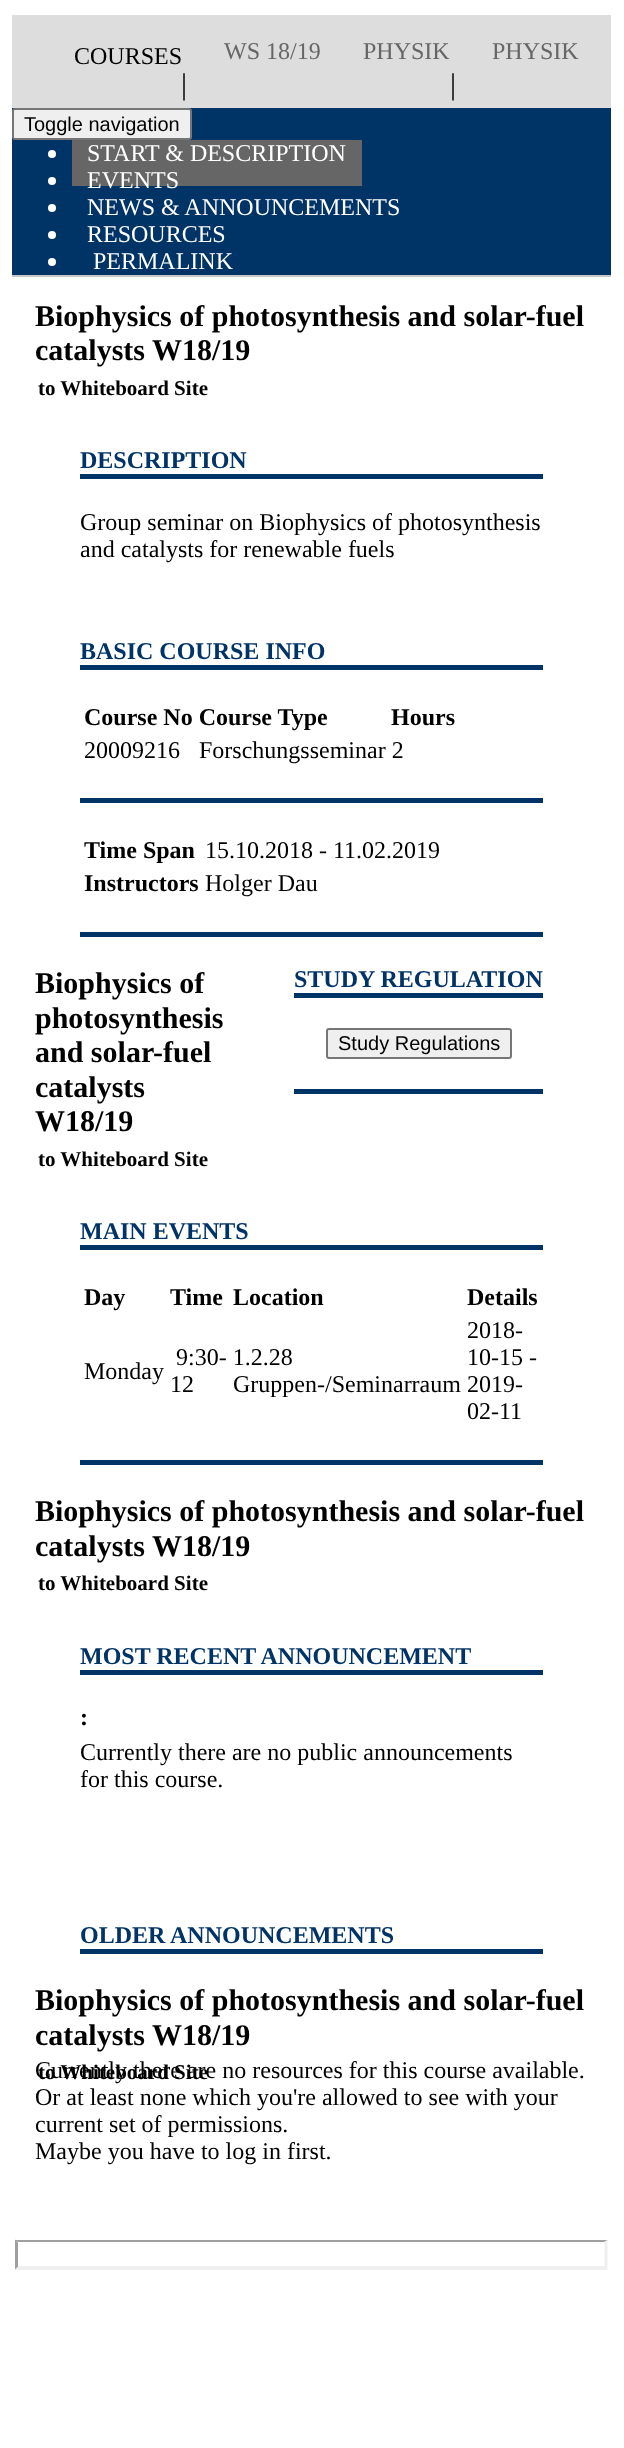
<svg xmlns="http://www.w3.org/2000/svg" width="624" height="2448">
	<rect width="100%" height="100%" fill="#FFFFFF" />
	<rect x="12" y="15" width="599" height="93" fill="#DDDDDD" />
	<text x="74" y="64" font-family="Liberation Serif" font-size="24" fill="#000000">COURSES</text>
	<g font-family="Liberation Serif" font-size="24" fill="#666666">
		<text x="224" y="59">WS 18/19</text>
		<text x="363" y="59">PHYSIK</text>
		<text x="492" y="59">PHYSIK</text>
	</g>
	<g font-family="Liberation Serif" font-size="30" fill="#000000">
		<text x="181" y="94">|</text>
		<text x="450" y="94">|</text>
	</g>
	<rect x="12" y="108" width="599" height="167" fill="#003366" />
	<rect x="12" y="275" width="599" height="2" fill="#C6C6C6" />
	<rect x="13" y="109" width="178" height="30" rx="2" fill="#EFEFEF" stroke="#767676" stroke-width="2" />
	<text x="24" y="131" font-family="Liberation Sans" font-size="20" fill="#000000">Toggle navigation</text>
	<circle cx="52" cy="154" r="4" fill="#FFFFFF" />
	<rect x="72" y="140" width="290" height="46" fill="#666666" />
	<text x="87" y="161" font-family="Liberation Serif" font-size="24" fill="#FFFFFF">START &amp; DESCRIPTION</text>
	<circle cx="52" cy="181" r="4" fill="#FFFFFF" />
	<text x="87" y="188" font-family="Liberation Serif" font-size="24" fill="#FFFFFF">EVENTS</text>
	<circle cx="52" cy="208" r="4" fill="#FFFFFF" />
	<text x="87" y="215" font-family="Liberation Serif" font-size="24" fill="#FFFFFF">NEWS &amp; ANNOUNCEMENTS</text>
	<circle cx="52" cy="235" r="4" fill="#FFFFFF" />
	<text x="87" y="242" font-family="Liberation Serif" font-size="24" fill="#FFFFFF">RESOURCES</text>
	<circle cx="52" cy="262" r="4" fill="#FFFFFF" />
	<text x="93" y="269" font-family="Liberation Serif" font-size="24" fill="#FFFFFF">PERMALINK</text>
	<g font-family="Liberation Serif" font-size="30" font-weight="700" fill="#000000">
		<text x="35" y="326">Biophysics of photosynthesis and solar-fuel</text>
		<text x="35" y="360">catalysts W18/19</text>
	</g>
	<text x="38" y="395" font-family="Liberation Serif" font-size="21" font-weight="700" fill="#000000">to Whiteboard Site</text>
	<text x="80" y="468" font-family="Liberation Serif" font-size="24" font-weight="700" fill="#003366">DESCRIPTION</text>
	<rect x="80" y="474" width="463" height="5" fill="#003366" />
	<g font-family="Liberation Serif" font-size="24" fill="#000000">
		<text x="80" y="530">Group seminar on Biophysics of photosynthesis</text>
		<text x="80" y="557">and catalysts for renewable fuels</text>
	</g>
	<text x="80" y="659" font-family="Liberation Serif" font-size="24" font-weight="700" fill="#003366">BASIC COURSE INFO</text>
	<rect x="80" y="665" width="463" height="5" fill="#003366" />
	<g font-family="Liberation Serif" font-size="24" font-weight="700" fill="#000000">
		<text x="84" y="725">Course No Course Type</text>
		<text x="391" y="725">Hours</text>
	</g>
	<g font-family="Liberation Serif" font-size="24" fill="#000000">
		<text x="84" y="758">20009216</text>
		<text x="199" y="758">Forschungsseminar 2</text>
	</g>
	<rect x="80" y="798" width="463" height="5" fill="#003366" />
	<text x="84" y="858" font-family="Liberation Serif" font-size="24" font-weight="700" fill="#000000">Time Span</text>
	<text x="205" y="858" font-family="Liberation Serif" font-size="24" fill="#000000">15.10.2018 - 11.02.2019</text>
	<text x="84" y="891" font-family="Liberation Serif" font-size="24" font-weight="700" fill="#000000">Instructors</text>
	<text x="205" y="891" font-family="Liberation Serif" font-size="24" fill="#000000">Holger Dau</text>
	<rect x="80" y="932" width="463" height="5" fill="#003366" />
	<text x="294" y="987" font-family="Liberation Serif" font-size="24" font-weight="700" fill="#003366">STUDY REGULATION</text>
	<rect x="294" y="993" width="249" height="5" fill="#003366" />
	<rect x="327" y="1029" width="184" height="29" rx="2" fill="#EFEFEF" stroke="#767676" stroke-width="2" />
	<text x="338" y="1050" font-family="Liberation Sans" font-size="20" fill="#000000">Study Regulations</text>
	<rect x="294" y="1089" width="249" height="5" fill="#003366" />
	<g font-family="Liberation Serif" font-size="30" font-weight="700" fill="#000000">
		<text x="35" y="993">Biophysics of</text>
		<text x="35" y="1028">photosynthesis</text>
		<text x="35" y="1062">and solar-fuel</text>
		<text x="35" y="1097">catalysts</text>
		<text x="35" y="1131">W18/19</text>
	</g>
	<text x="38" y="1166" font-family="Liberation Serif" font-size="21" font-weight="700" fill="#000000">to Whiteboard Site</text>
	<text x="80" y="1239" font-family="Liberation Serif" font-size="24" font-weight="700" fill="#003366">MAIN EVENTS</text>
	<rect x="80" y="1245" width="463" height="5" fill="#003366" />
	<g font-family="Liberation Serif" font-size="24" font-weight="700" fill="#000000">
		<text x="84" y="1305">Day</text>
		<text x="170" y="1305">Time</text>
		<text x="233" y="1305">Location</text>
		<text x="467" y="1305">Details</text>
	</g>
	<g font-family="Liberation Serif" font-size="24" fill="#000000">
		<text x="84" y="1379">Monday</text>
		<text x="176" y="1365">9:30- 1.2.28</text>
		<text x="170" y="1392">12</text>
		<text x="233" y="1392">Gruppen-/Seminarraum</text>
		<text x="467" y="1338">2018-</text>
		<text x="467" y="1365">10-15 -</text>
		<text x="467" y="1392">2019-</text>
		<text x="467" y="1419">02-11</text>
	</g>
	<rect x="80" y="1460" width="463" height="5" fill="#003366" />
	<g font-family="Liberation Serif" font-size="30" font-weight="700" fill="#000000">
		<text x="35" y="1521">Biophysics of photosynthesis and solar-fuel</text>
		<text x="35" y="1556">catalysts W18/19</text>
	</g>
	<text x="38" y="1590" font-family="Liberation Serif" font-size="21" font-weight="700" fill="#000000">to Whiteboard Site</text>
	<text x="80" y="1664" font-family="Liberation Serif" font-size="24" font-weight="700" fill="#003366">MOST RECENT ANNOUNCEMENT</text>
	<rect x="80" y="1670" width="463" height="5" fill="#003366" />
	<text x="80" y="1725" font-family="Liberation Serif" font-size="24" font-weight="700" fill="#000000">:</text>
	<g font-family="Liberation Serif" font-size="24" fill="#000000">
		<text x="80" y="1760">Currently there are no public announcements</text>
		<text x="80" y="1787">for this course.</text>
	</g>
	<text x="80" y="1943" font-family="Liberation Serif" font-size="24" font-weight="700" fill="#003366">OLDER ANNOUNCEMENTS</text>
	<rect x="80" y="1949" width="463" height="5" fill="#003366" />
	<g font-family="Liberation Serif" font-size="30" font-weight="700" fill="#000000">
		<text x="35" y="2010">Biophysics of photosynthesis and solar-fuel</text>
		<text x="35" y="2045">catalysts W18/19</text>
	</g>
	<text x="38" y="2079" font-family="Liberation Serif" font-size="21" font-weight="700" fill="#000000">to Whiteboard Site</text>
	<g font-family="Liberation Serif" font-size="24" fill="#000000">
		<text x="35" y="2078">Currently there are no resources for this course available.</text>
		<text x="35" y="2105">Or at least none which you're allowed to see with your</text>
		<text x="35" y="2132">current set of permissions.</text>
		<text x="35" y="2159">Maybe you have to log in first.</text>
	</g>
	<path d="M15 2240H608L604 2242H18Z" fill="#9F9F9F" />
	<path d="M607.5 2239.5V2269.5L604.5 2266.5V2242.5Z" fill="#EFEFEF" />
	<path d="M608 2270H15L18 2266H604Z" fill="#EFEFEF" />
	<path d="M15 2269.5V2239.5L18 2242.5V2266.5Z" fill="#9F9F9F" />
</svg>
